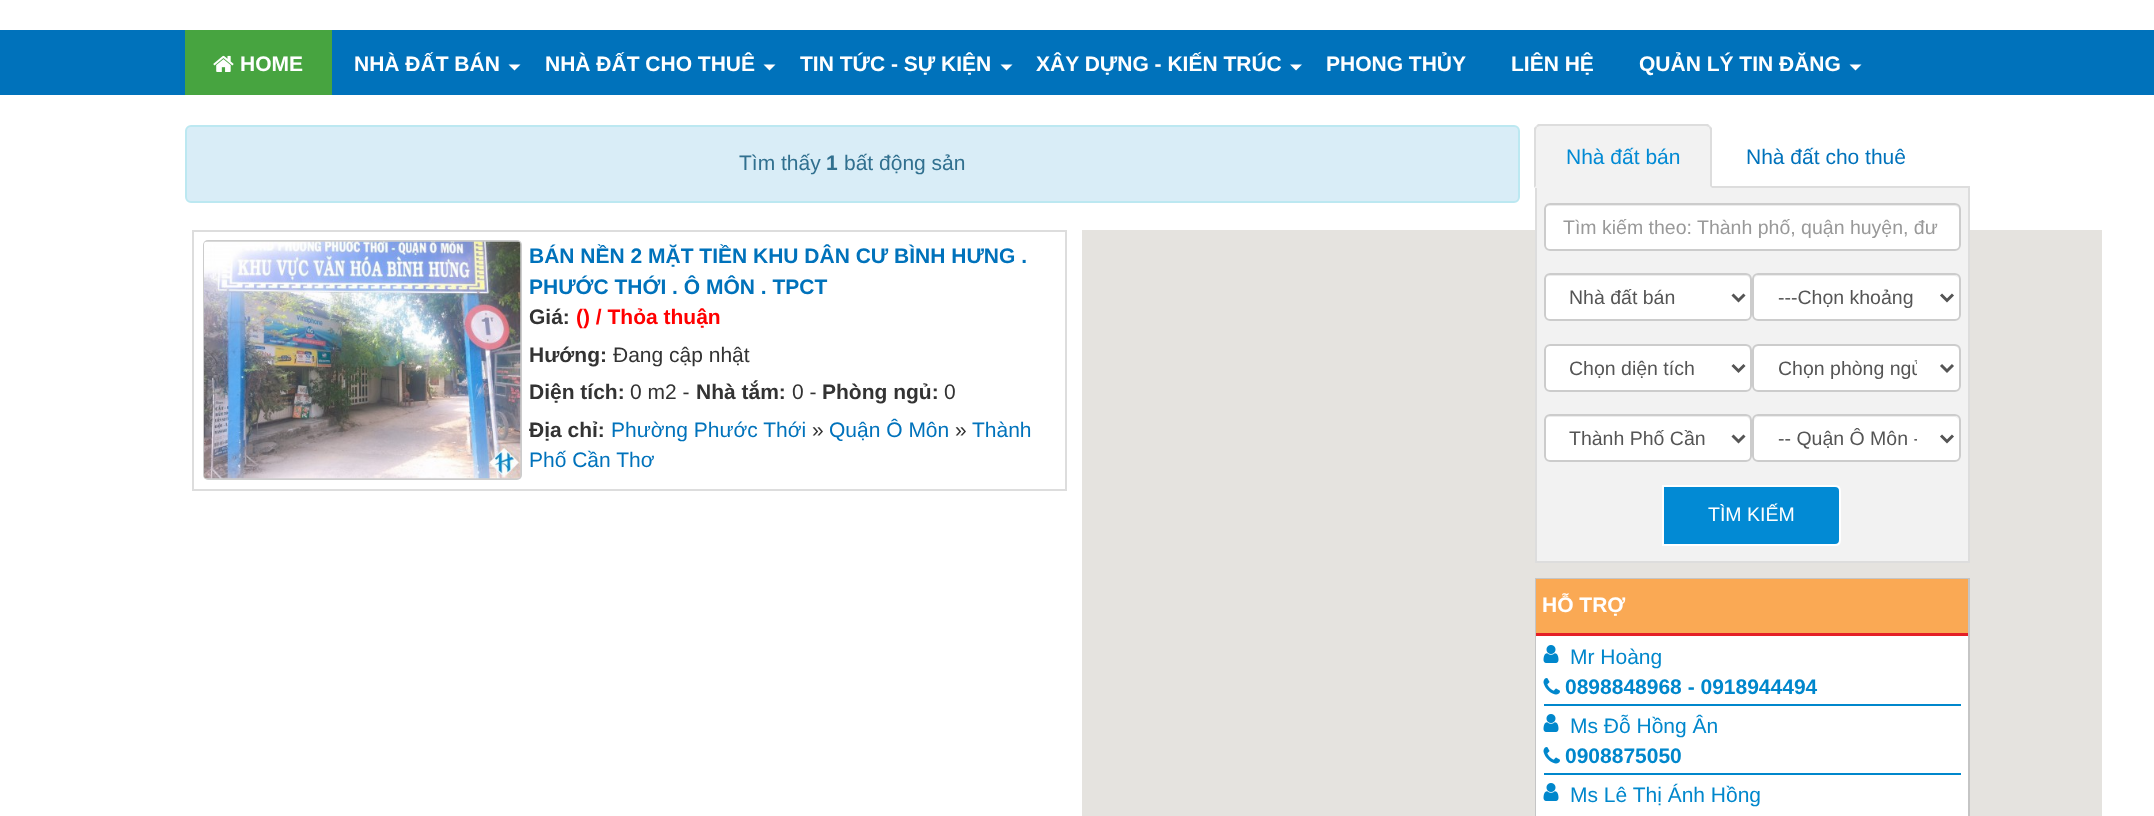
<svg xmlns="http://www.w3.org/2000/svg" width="2154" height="816">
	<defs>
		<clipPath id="clip1"><rect x="1778" y="356" width="139" height="25" /></clipPath>
		<clipPath id="clip2"><rect x="1778" y="426" width="139" height="26" /></clipPath>
	</defs>
	<rect width="100%" height="100%" fill="#FFFFFF" />
	<rect x="0" y="30" width="2154" height="65" fill="#0072BB" />
	<rect x="185" y="30" width="147" height="65" fill="#47A440" />
	<image x="213" y="55" width="21" height="17" href="assets/img1.png" />
	<g font-family="Liberation Sans" font-size="21" font-weight="700" fill="#FFFFFF">
		<text x="240" y="71">HOME</text>
		<text x="354" y="71">NHÀ ĐẤT BÁN</text>
	</g>
	<path d="M508.5 64.5H520.5L514.5 70.5Z" fill="#FFFFFF" />
	<text x="545" y="71" font-family="Liberation Sans" font-size="21" font-weight="700" fill="#FFFFFF">NHÀ ĐẤT CHO THUÊ</text>
	<path d="M763.5 64.5H775.5L769.5 70.5Z" fill="#FFFFFF" />
	<text x="800" y="71" font-family="Liberation Sans" font-size="21" font-weight="700" fill="#FFFFFF">TIN TỨC - SỰ KIỆN</text>
	<path d="M1000.5 64.5H1012.5L1006.5 70.5Z" fill="#FFFFFF" />
	<text x="1036" y="71" font-family="Liberation Sans" font-size="21" font-weight="700" fill="#FFFFFF">XÂY DỰNG - KIẾN TRÚC</text>
	<path d="M1290 64.5H1302L1296 70.5Z" fill="#FFFFFF" />
	<g font-family="Liberation Sans" font-size="21" font-weight="700" fill="#FFFFFF">
		<text x="1326" y="71">PHONG THỦY</text>
		<text x="1511" y="71">LIÊN HỆ</text>
		<text x="1639" y="71">QUẢN LÝ TIN ĐĂNG</text>
	</g>
	<path d="M1849.5 64.5H1861.5L1855.5 70.5Z" fill="#FFFFFF" />
	<rect x="186" y="126" width="1333" height="76" rx="5" fill="#D9EDF7" stroke="#BCE8F1" stroke-width="2" />
	<text x="739" y="170" font-family="Liberation Sans" font-size="21" fill="#31708F">Tìm thấy</text>
	<text x="826" y="170" font-family="Liberation Sans" font-size="21" font-weight="700" fill="#31708F">1</text>
	<text x="844" y="170" font-family="Liberation Sans" font-size="21" fill="#31708F">bất động sản</text>
	<rect x="193" y="231" width="873" height="259" fill="none" stroke="#DDDDDD" stroke-width="2" />
	<rect x="203" y="240" width="319" height="240" rx="5" fill="#CCCCCC" />
	<image x="204" y="241" width="317" height="238" href="assets/img2.png" />
	<g font-family="Liberation Sans" font-size="21" font-weight="700" fill="#0072BB">
		<text x="529" y="263">BÁN NỀN 2 MẶT TIỀN KHU DÂN CƯ BÌNH HƯNG .</text>
		<text x="529" y="294">PHƯỚC THỚI . Ô MÔN . TPCT</text>
	</g>
	<text x="529" y="324" font-family="Liberation Sans" font-size="21" font-weight="700" fill="#333333">Giá:</text>
	<text x="576" y="324" font-family="Liberation Sans" font-size="21" font-weight="700" fill="#FF0000">() / Thỏa thuận</text>
	<text x="529" y="362" font-family="Liberation Sans" font-size="21" font-weight="700" fill="#333333">Hướng:</text>
	<text x="613" y="362" font-family="Liberation Sans" font-size="21" fill="#333333">Đang cập nhật</text>
	<text x="529" y="399" font-family="Liberation Sans" font-size="21" font-weight="700" fill="#333333">Diện tích:</text>
	<text x="630" y="399" font-family="Liberation Sans" font-size="21" fill="#333333">0 m2 -</text>
	<text x="696" y="399" font-family="Liberation Sans" font-size="21" font-weight="700" fill="#333333">Nhà tắm:</text>
	<text x="792" y="399" font-family="Liberation Sans" font-size="21" fill="#333333">0 -</text>
	<text x="822" y="399" font-family="Liberation Sans" font-size="21" font-weight="700" fill="#333333">Phòng ngủ:</text>
	<text x="944" y="399" font-family="Liberation Sans" font-size="21" fill="#333333">0</text>
	<text x="529" y="437" font-family="Liberation Sans" font-size="21" font-weight="700" fill="#333333">Địa chỉ:</text>
	<text x="611" y="437" font-family="Liberation Sans" font-size="21" fill="#0072BB">Phường Phước Thới</text>
	<text x="812" y="437" font-family="Liberation Sans" font-size="21" fill="#333333">»</text>
	<text x="829" y="437" font-family="Liberation Sans" font-size="21" fill="#0072BB">Quận Ô Môn</text>
	<text x="955" y="437" font-family="Liberation Sans" font-size="21" fill="#333333">»</text>
	<g font-family="Liberation Sans" font-size="21" fill="#0072BB">
		<text x="972" y="437">Thành</text>
		<text x="529" y="467">Phố Cần Thơ</text>
	</g>
	<rect x="1082" y="230" width="1020" height="586" fill="#E5E3DF" />
	<rect x="1712" y="186" width="258" height="2" fill="#DDDDDD" />
	<path d="M1541 125H1706C1709.5 125 1712 127.5 1712 131V188H1535V131C1535 127.5 1537.5 125 1541 125Z" fill="#F2F2F2" />
	<path d="M1540 126L1537 127L1536 126L1538 124H1708L1710 126L1709 127L1706 126Z" fill="#DDDDDD" />
	<path d="M1710 126L1712 128V188L1710 186V130L1709 127Z" fill="#DDDDDD" />
	<path d="M1534 188V128L1536 126L1537 127L1536 130V186Z" fill="#DDDDDD" />
	<text x="1566" y="164" font-family="Liberation Sans" font-size="21" fill="#028AD4">Nhà đất bán</text>
	<text x="1746" y="164" font-family="Liberation Sans" font-size="21" fill="#0072BB">Nhà đất cho thuê</text>
	<rect x="1537" y="188" width="431" height="373" fill="#F2F2F2" />
	<rect x="1968" y="188" width="2" height="375" fill="#DDDDDD" />
	<rect x="1535" y="561" width="435" height="2" fill="#DDDDDD" />
	<rect x="1535" y="188" width="2" height="375" fill="#DDDDDD" />
	<rect x="1544" y="203" width="417" height="48" rx="6" fill="#FFFFFF" />
	<path d="M1550 206H1954C1957 206 1959 208 1959 210V209C1959 206 1957 204 1954 204H1550C1547 204 1545 206 1545 209V210C1545 208 1547 206 1550 206Z" fill="#ECECEC" />
	<rect x="1545" y="204" width="415" height="46" rx="5" fill="none" stroke="#CCCCCC" stroke-width="2" />
	<text x="1563" y="234" font-family="Liberation Sans" font-size="19.5" fill="#999999">Tìm kiếm theo: Thành phố, quận huyện, đư</text>
	<rect x="1544" y="273" width="208" height="48" rx="6" fill="#FFFFFF" />
	<path d="M1550 276H1746C1748 276 1750 278 1750 280V316L1749 319C1750 318 1751 316 1751 315V280C1751 277 1749 275 1746 275H1550C1547 275 1545 277 1545 280C1545 278 1547 276 1550 276Z" fill="#ECECEC" />
	<rect x="1545" y="274" width="206" height="46" rx="5" fill="none" stroke="#CCCCCC" stroke-width="2" />
	<path d="M1732.5 294.5L1738.5 300.5L1744.5 294.5" fill="none" stroke="#555555" stroke-width="3" />
	<text x="1569" y="304" font-family="Liberation Sans" font-size="19.5" fill="#555555">Nhà đất bán</text>
	<rect x="1752" y="273" width="209" height="48" rx="6" fill="#FFFFFF" />
	<path d="M1758 276H1954C1957 276 1959 278 1959 280C1959 277 1957 275 1954 275H1759C1756 275 1754 277 1754 280C1754 278 1756 276 1758 276Z" fill="#ECECEC" />
	<rect x="1753" y="274" width="207" height="46" rx="5" fill="none" stroke="#CCCCCC" stroke-width="2" />
	<path d="M1941 294.5L1947 300.5L1953 294.5" fill="none" stroke="#555555" stroke-width="3" />
	<text x="1778" y="304" font-family="Liberation Sans" font-size="19.5" fill="#555555">---Chọn khoảng</text>
	<rect x="1544" y="344" width="208" height="48" rx="6" fill="#FFFFFF" />
	<path d="M1550 346H1746C1752 346 1750 361 1750 363V388C1751 387 1751 386 1751 385V350C1751 347 1749 345 1746 345H1550C1547 345 1545 347 1545 350V351C1545 349 1547 346 1550 346Z" fill="#ECECEC" />
	<rect x="1545" y="345" width="206" height="46" rx="5" fill="none" stroke="#CCCCCC" stroke-width="2" />
	<path d="M1732.5 365L1738.5 371L1744.5 365" fill="none" stroke="#555555" stroke-width="3" />
	<text x="1569" y="375" font-family="Liberation Sans" font-size="19.5" fill="#555555">Chọn diện tích</text>
	<rect x="1752" y="344" width="209" height="48" rx="6" fill="#FFFFFF" />
	<path d="M1758 346H1954C1957 346 1959 349 1959 351V350C1959 347 1957 345 1954 345H1759C1756 345 1754 347 1754 350V351C1754 349 1756 346 1758 346Z" fill="#ECECEC" />
	<rect x="1753" y="345" width="207" height="46" rx="5" fill="none" stroke="#CCCCCC" stroke-width="2" />
	<path d="M1941 365L1947 371L1953 365" fill="none" stroke="#555555" stroke-width="3" />
	<g clip-path="url(#clip1)">
		<text x="1778" y="375" font-family="Liberation Sans" font-size="19.5" fill="#555555">Chọn phòng ngủ</text>
	</g>
	<rect x="1544" y="414" width="208" height="48" rx="6" fill="#FFFFFF" />
	<path d="M1550 417H1746C1748 417 1750 419 1750 422V459C1751 458 1751 457 1751 456V421C1751 418 1749 416 1746 416H1550C1547 416 1545 418 1545 421V422C1545 419 1547 417 1550 417Z" fill="#ECECEC" />
	<rect x="1545" y="415" width="206" height="46" rx="5" fill="none" stroke="#CCCCCC" stroke-width="2" />
	<path d="M1732.5 435.5L1738.5 441.5L1744.5 435.5" fill="none" stroke="#555555" stroke-width="3" />
	<text x="1569" y="445" font-family="Liberation Sans" font-size="19.5" fill="#555555">Thành Phố Cần</text>
	<rect x="1752" y="414" width="209" height="48" rx="6" fill="#FFFFFF" />
	<path d="M1758 417H1954C1957 417 1959 419 1959 422V421C1959 418 1957 416 1954 416H1759C1756 416 1754 418 1754 421V422C1754 419 1756 417 1758 417Z" fill="#ECECEC" />
	<rect x="1753" y="415" width="207" height="46" rx="5" fill="none" stroke="#CCCCCC" stroke-width="2" />
	<path d="M1941 435.5L1947 441.5L1953 435.5" fill="none" stroke="#555555" stroke-width="3" />
	<g clip-path="url(#clip2)">
		<text x="1778" y="445" font-family="Liberation Sans" font-size="19.5" fill="#555555">-- Quận Ô Môn -</text>
	</g>
	<path d="M1663 486H1835C1838 486 1840 488 1840 491V540C1840 543 1838 545 1835 545H1663Z" fill="#028AD4" stroke="#FFFFFF" stroke-width="2" />
	<text x="1708" y="521" font-family="Liberation Sans" font-size="19.5" fill="#FFFFFF">TÌM KIẾM</text>
	<rect x="1536" y="579" width="433" height="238" fill="none" stroke="#C5C5C5" stroke-width="2" />
	<rect x="1536" y="579" width="432" height="54" fill="#FAA954" />
	<rect x="1536" y="633" width="432" height="3" fill="#E41F26" />
	<text x="1542" y="612" font-family="Liberation Sans" font-size="21" font-weight="700" fill="#FFFFFF">HỖ TRỢ</text>
	<rect x="1536" y="636" width="432" height="180" fill="#FFFFFF" />
	<rect x="1544" y="704" width="417" height="2" fill="#0087CC" />
	<image x="1543" y="645" width="16" height="18" href="assets/img3.png" />
	<text x="1570" y="664" font-family="Liberation Sans" font-size="21" fill="#0087CC">Mr Hoàng</text>
	<image x="1543" y="678" width="17" height="17" href="assets/img4.png" />
	<text x="1565" y="694" font-family="Liberation Sans" font-size="21" font-weight="700" fill="#0087CC">0898848968 - 0918944494</text>
	<rect x="1544" y="773" width="417" height="2" fill="#0087CC" />
	<image x="1543" y="714" width="16" height="18" href="assets/img3.png" />
	<text x="1570" y="733" font-family="Liberation Sans" font-size="21" fill="#0087CC">Ms Đỗ Hồng Ân</text>
	<image x="1543" y="747" width="17" height="17" href="assets/img4.png" />
	<text x="1565" y="763" font-family="Liberation Sans" font-size="21" font-weight="700" fill="#0087CC">0908875050</text>
	<image x="1543" y="783" width="16" height="18" href="assets/img3.png" />
	<text x="1570" y="802" font-family="Liberation Sans" font-size="21" fill="#0087CC">Ms Lê Thị Ánh Hồng</text>
</svg>
